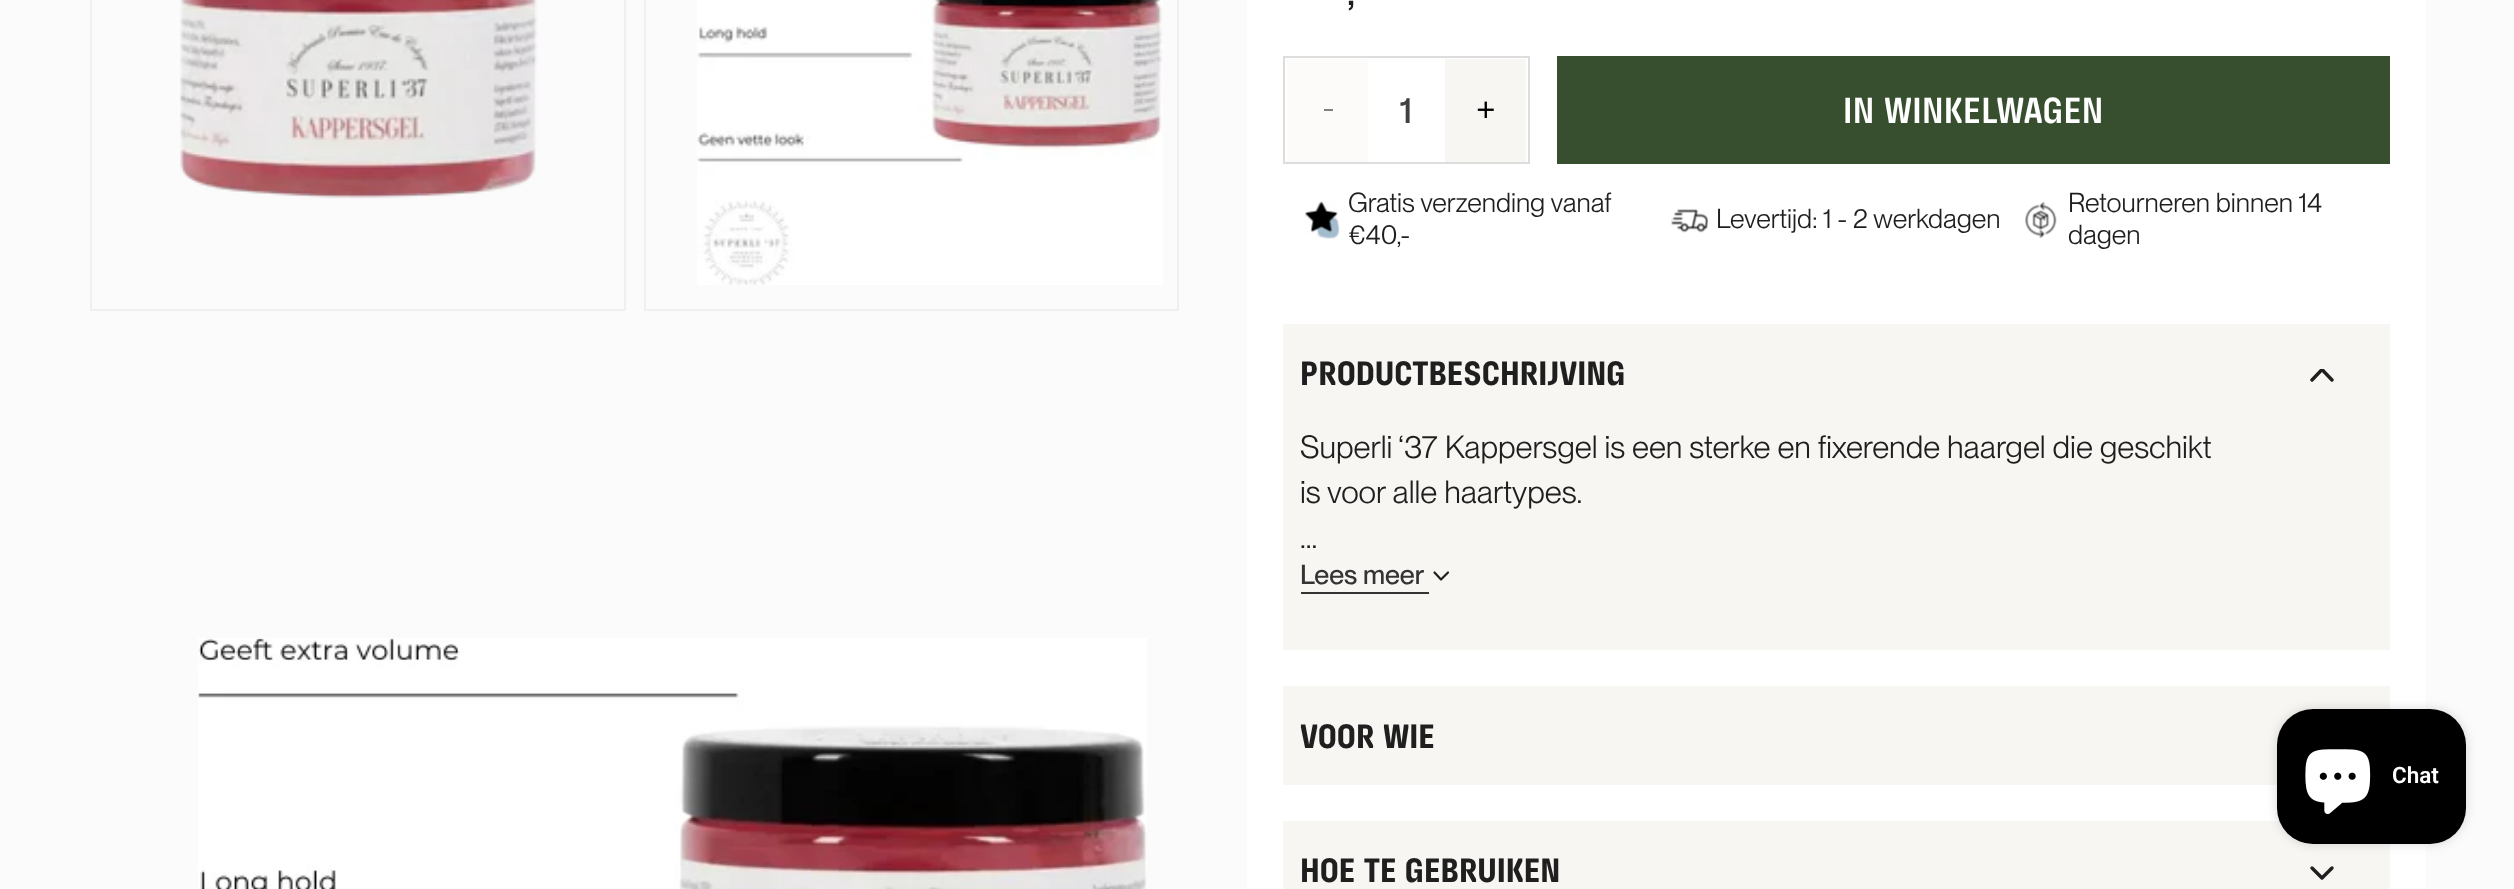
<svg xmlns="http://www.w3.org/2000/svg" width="2514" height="889">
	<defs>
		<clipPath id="clip1"><rect x="2306" y="369" width="32" height="14" /></clipPath>
	</defs>
	<rect width="100%" height="100%" fill="#FBFBFB" />
	<rect x="91" y="-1" width="534" height="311" fill="none" stroke="#F0F0F0" stroke-width="2" />
	<image x="180" y="0" width="358" height="199" href="assets/img1.png" />
	<rect x="645" y="-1" width="533" height="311" fill="none" stroke="#F0F0F0" stroke-width="2" />
	<image x="697" y="0" width="466" height="285" href="assets/img2.png" />
	<image x="198" y="638" width="949" height="251" href="assets/img3.png" />
	<rect x="1247" y="0" width="1179" height="889" fill="#FFFFFF" />
	<text x="1347" y="5" font-family="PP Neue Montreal" font-size="40" font-weight="500" fill="#1F1F1F">,</text>
	<rect x="1284" y="57" width="245" height="106" fill="none" stroke="#DDDDDD" stroke-width="2" />
	<rect x="1287" y="59" width="81" height="103" fill="#FCFBF9" />
	<rect x="1324" y="109" width="9" height="2" fill="#808080" />
	<text x="1400" y="123" font-family="PP Neue Montreal" font-size="36" font-weight="500" fill="#414141">1</text>
	<rect x="1445" y="59" width="81" height="103" fill="#F8F6F3" />
	<image x="1477" y="101" width="17" height="17" href="assets/img4.png" />
	<rect x="1557" y="56" width="833" height="108" fill="#374F2F" />
	<text x="1843" y="123" font-family="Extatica" font-size="36" font-weight="600" letter-spacing="0.25" fill="#FFFFFF">IN WINKELWAGEN</text>
	<image x="1304" y="201" width="36" height="38" href="assets/img5.png" />
	<g font-family="PP Neue Montreal" font-size="27" fill="#1F1F1F">
		<text x="1348" y="212">Gratis verzending vanaf</text>
		<text x="1348" y="244">€40,-</text>
	</g>
	<image x="1671" y="209" width="37" height="24" href="assets/img6.png" />
	<text x="1716" y="228" font-family="PP Neue Montreal" font-size="27" fill="#1F1F1F">Levertijd: 1 - 2 werkdagen</text>
	<image x="2025" y="202" width="32" height="36" href="assets/img7.png" />
	<g font-family="PP Neue Montreal" font-size="27" fill="#1F1F1F">
		<text x="2068" y="212">Retourneren binnen 14</text>
		<text x="2068" y="244">dagen</text>
	</g>
	<rect x="1283" y="324" width="1107" height="326" fill="#F8F6F3" />
	<text x="1300" y="385" font-family="Extatica" font-size="33.75" font-weight="700" fill="#1F1F1F">PRODUCTBESCHRIJVING</text>
	<g clip-path="url(#clip1)">
		<path d="M2312 380L2322 369.5L2332 380" fill="none" stroke="#1F1F1F" stroke-width="3.4" stroke-linecap="round" stroke-linejoin="round" />
	</g>
	<g font-family="PP Neue Montreal" font-size="31.5" fill="#1F1F1F">
		<text x="1300" y="458">Superli ‘37 Kappersgel is een sterke en fixerende haargel die geschikt</text>
		<text x="1300" y="503">is voor alle haartypes.</text>
		<text x="1300" y="548">...</text>
	</g>
	<text x="1300" y="584" font-family="PP Neue Montreal" font-size="27" font-weight="500" fill="#353434">Lees meer</text>
	<rect x="1301" y="592" width="128" height="2" fill="#353434" />
	<path d="M1448 572.5L1441 579.5L1434.5 572.5" fill="none" stroke="#1F1F1F" stroke-width="2.2" stroke-linecap="round" stroke-linejoin="round" />
	<rect x="1283" y="686" width="1107" height="99" fill="#F8F6F3" />
	<text x="1300" y="748" font-family="Extatica" font-size="33.75" font-weight="700" fill="#1F1F1F">VOOR WIE</text>
	<rect x="1283" y="821" width="1107" height="68" fill="#F8F6F3" />
	<text x="1300" y="882" font-family="Extatica" font-size="33.75" font-weight="700" fill="#1F1F1F">HOE TE GEBRUIKEN</text>
	<path d="M2332 868L2322 878L2312 868" fill="none" stroke="#1F1F1F" stroke-width="3.4" stroke-linecap="round" stroke-linejoin="round" />
	<rect x="2277" y="709" width="189" height="135" rx="36" fill="#000000" fill-opacity="0.15" filter="blur(5.5px)" />
	<rect x="2277" y="709" width="189" height="135" rx="36" fill="#000000" />
	<image x="2305" y="749" width="66" height="65" href="assets/img8.png" />
	<text x="2392" y="783" font-family="Roboto" font-size="22.5" font-weight="600" fill="#FFFFFF">Chat</text>
</svg>
